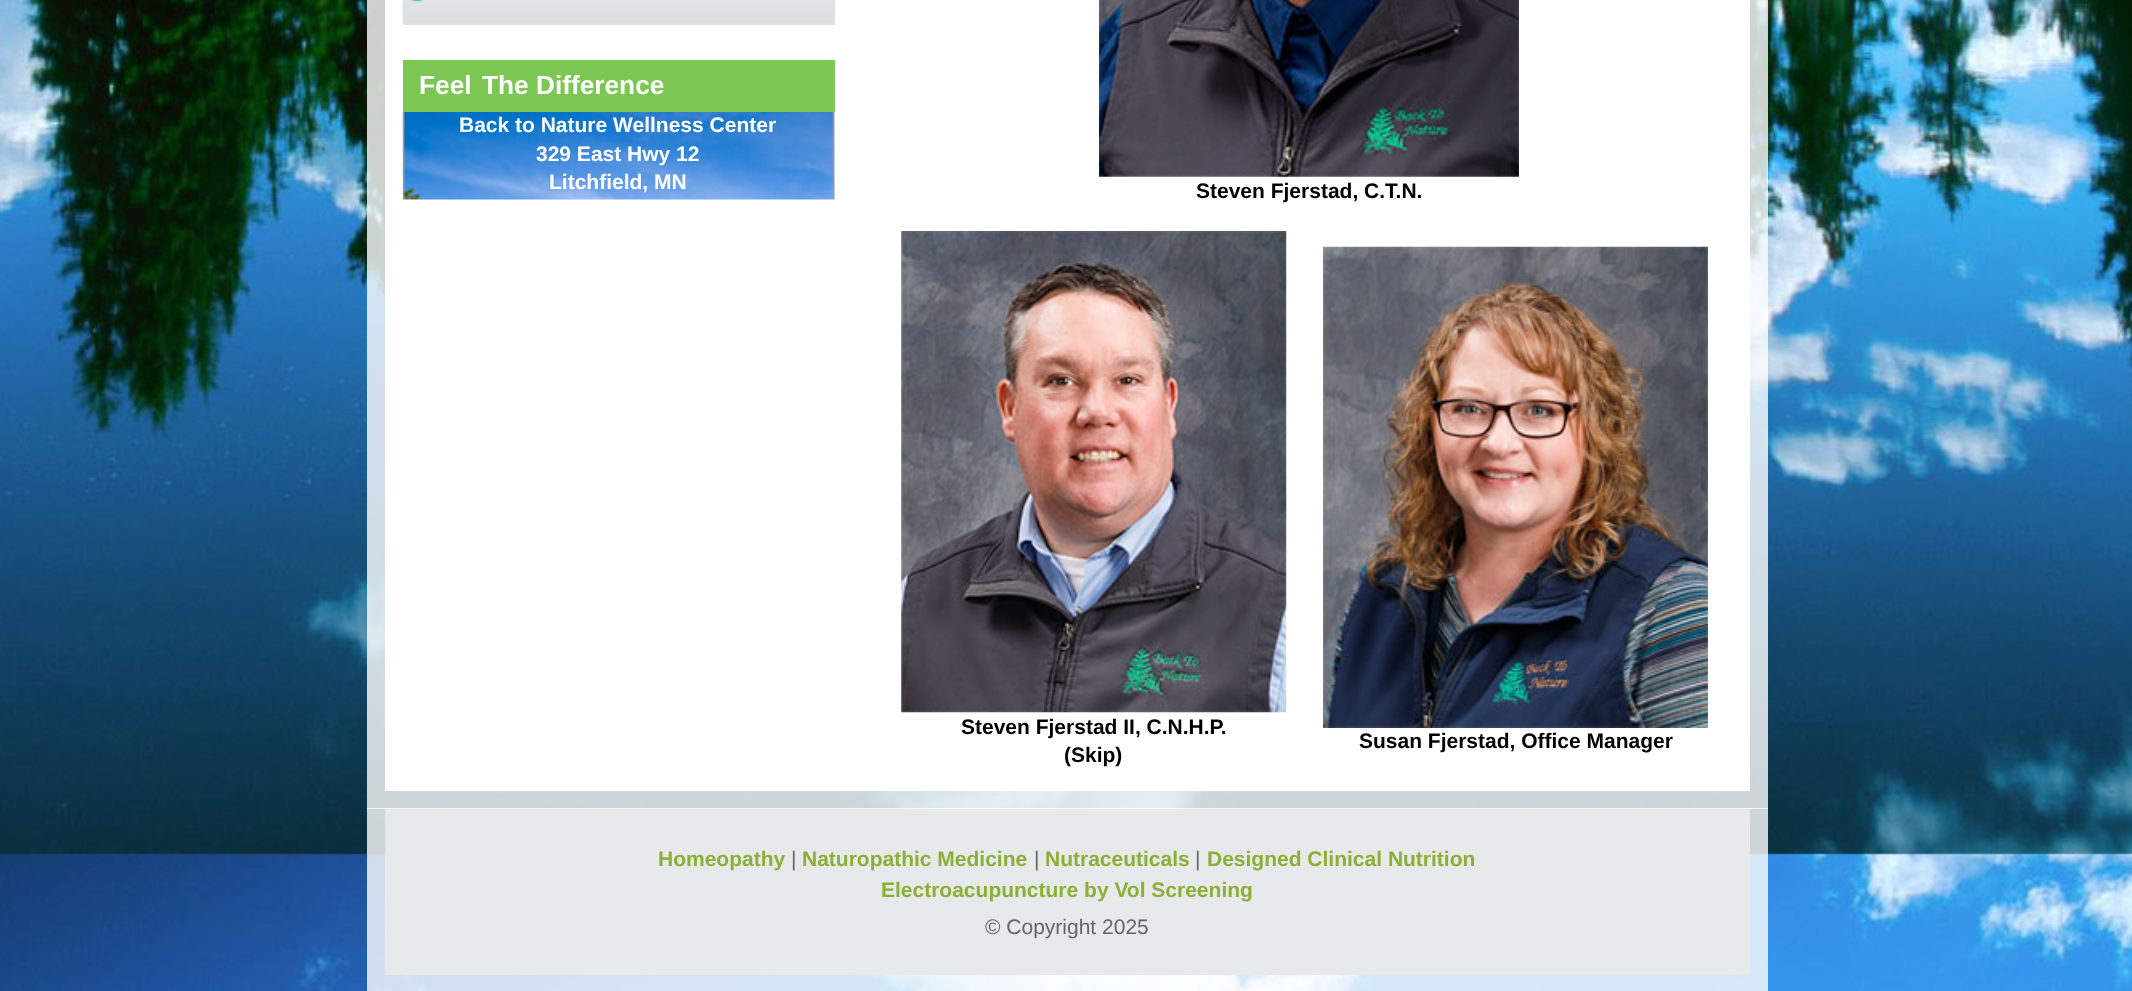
<svg xmlns="http://www.w3.org/2000/svg" width="2132" height="991">
	<rect width="100%" height="100%" fill="#FFFFFF" />
	<image x="0" y="0" width="2132" height="991" href="assets/img1.png" />
	<rect x="367" y="0" width="1401" height="809" fill="#FFFFFF" fill-opacity="0.8" />
	<rect x="385" y="0" width="1365" height="791" fill="#FFFFFF" />
	<image x="402" y="0" width="431" height="23" href="assets/img2.png" />
	<rect x="833" y="0" width="2" height="25" fill="#DFE0E1" />
	<rect x="403" y="23" width="432" height="2" fill="#DFE0E1" />
	<rect x="403" y="0" width="2" height="25" fill="#DFE0E1" />
	<rect x="404" y="21" width="429" height="2" fill="#DDDDDD" />
	<image x="410" y="0" width="15" height="2" href="assets/img3.png" />
	<rect x="403" y="60" width="432" height="52" fill="#7CC753" />
	<g font-family="Liberation Sans" font-size="26.25" font-weight="700" fill="#FFFFFF">
		<text x="419" y="94">Feel</text>
		<text x="482" y="94">The Difference</text>
	</g>
	<image x="402" y="112" width="433" height="88" href="assets/img4.png" />
	<g font-family="Liberation Sans" font-size="21" font-weight="700" fill="#FFFFFF">
		<text x="459" y="132">Back to Nature Wellness Center</text>
		<text x="536" y="161">329 East Hwy 12</text>
		<text x="549" y="189">Litchfield, MN</text>
	</g>
	<image x="1099" y="0" width="420" height="177" href="assets/img5.png" />
	<text x="1196" y="198" font-family="Liberation Sans" font-size="21" font-weight="700" fill="#000000">Steven Fjerstad, C.T.N.</text>
	<image x="901" y="231" width="386" height="482" href="assets/img6.png" />
	<g font-family="Liberation Sans" font-size="21" font-weight="700" fill="#000000">
		<text x="961" y="734">Steven Fjerstad II, C.N.H.P.</text>
		<text x="1064" y="762">(Skip)</text>
	</g>
	<image x="1323" y="246" width="385" height="482" href="assets/img7.png" />
	<text x="1359" y="748" font-family="Liberation Sans" font-size="21" font-weight="700" fill="#000000">Susan Fjerstad, Office Manager</text>
	<rect x="367" y="808" width="1401" height="183" fill="#FFFFFF" fill-opacity="0.8" />
	<rect x="385" y="809" width="1365" height="166" fill="#E8E9EA" />
	<text x="658" y="866" font-family="Liberation Sans" font-size="21" font-weight="700" fill="#8BB036">Homeopathy</text>
	<text x="791" y="866" font-family="Liberation Sans" font-size="21" fill="#666666">|</text>
	<text x="802" y="866" font-family="Liberation Sans" font-size="21" font-weight="700" fill="#8BB036">Naturopathic Medicine</text>
	<text x="1034" y="866" font-family="Liberation Sans" font-size="21" fill="#666666">|</text>
	<text x="1045" y="866" font-family="Liberation Sans" font-size="21" font-weight="700" fill="#8BB036">Nutraceuticals</text>
	<text x="1195" y="866" font-family="Liberation Sans" font-size="21" fill="#666666">|</text>
	<g font-family="Liberation Sans" font-size="21" font-weight="700" fill="#8BB036">
		<text x="1207" y="866">Designed Clinical Nutrition</text>
		<text x="881" y="897">Electroacupuncture by Vol Screening</text>
	</g>
	<text x="985" y="934" font-family="Liberation Sans" font-size="21" fill="#666666">© Copyright 2025</text>
</svg>
